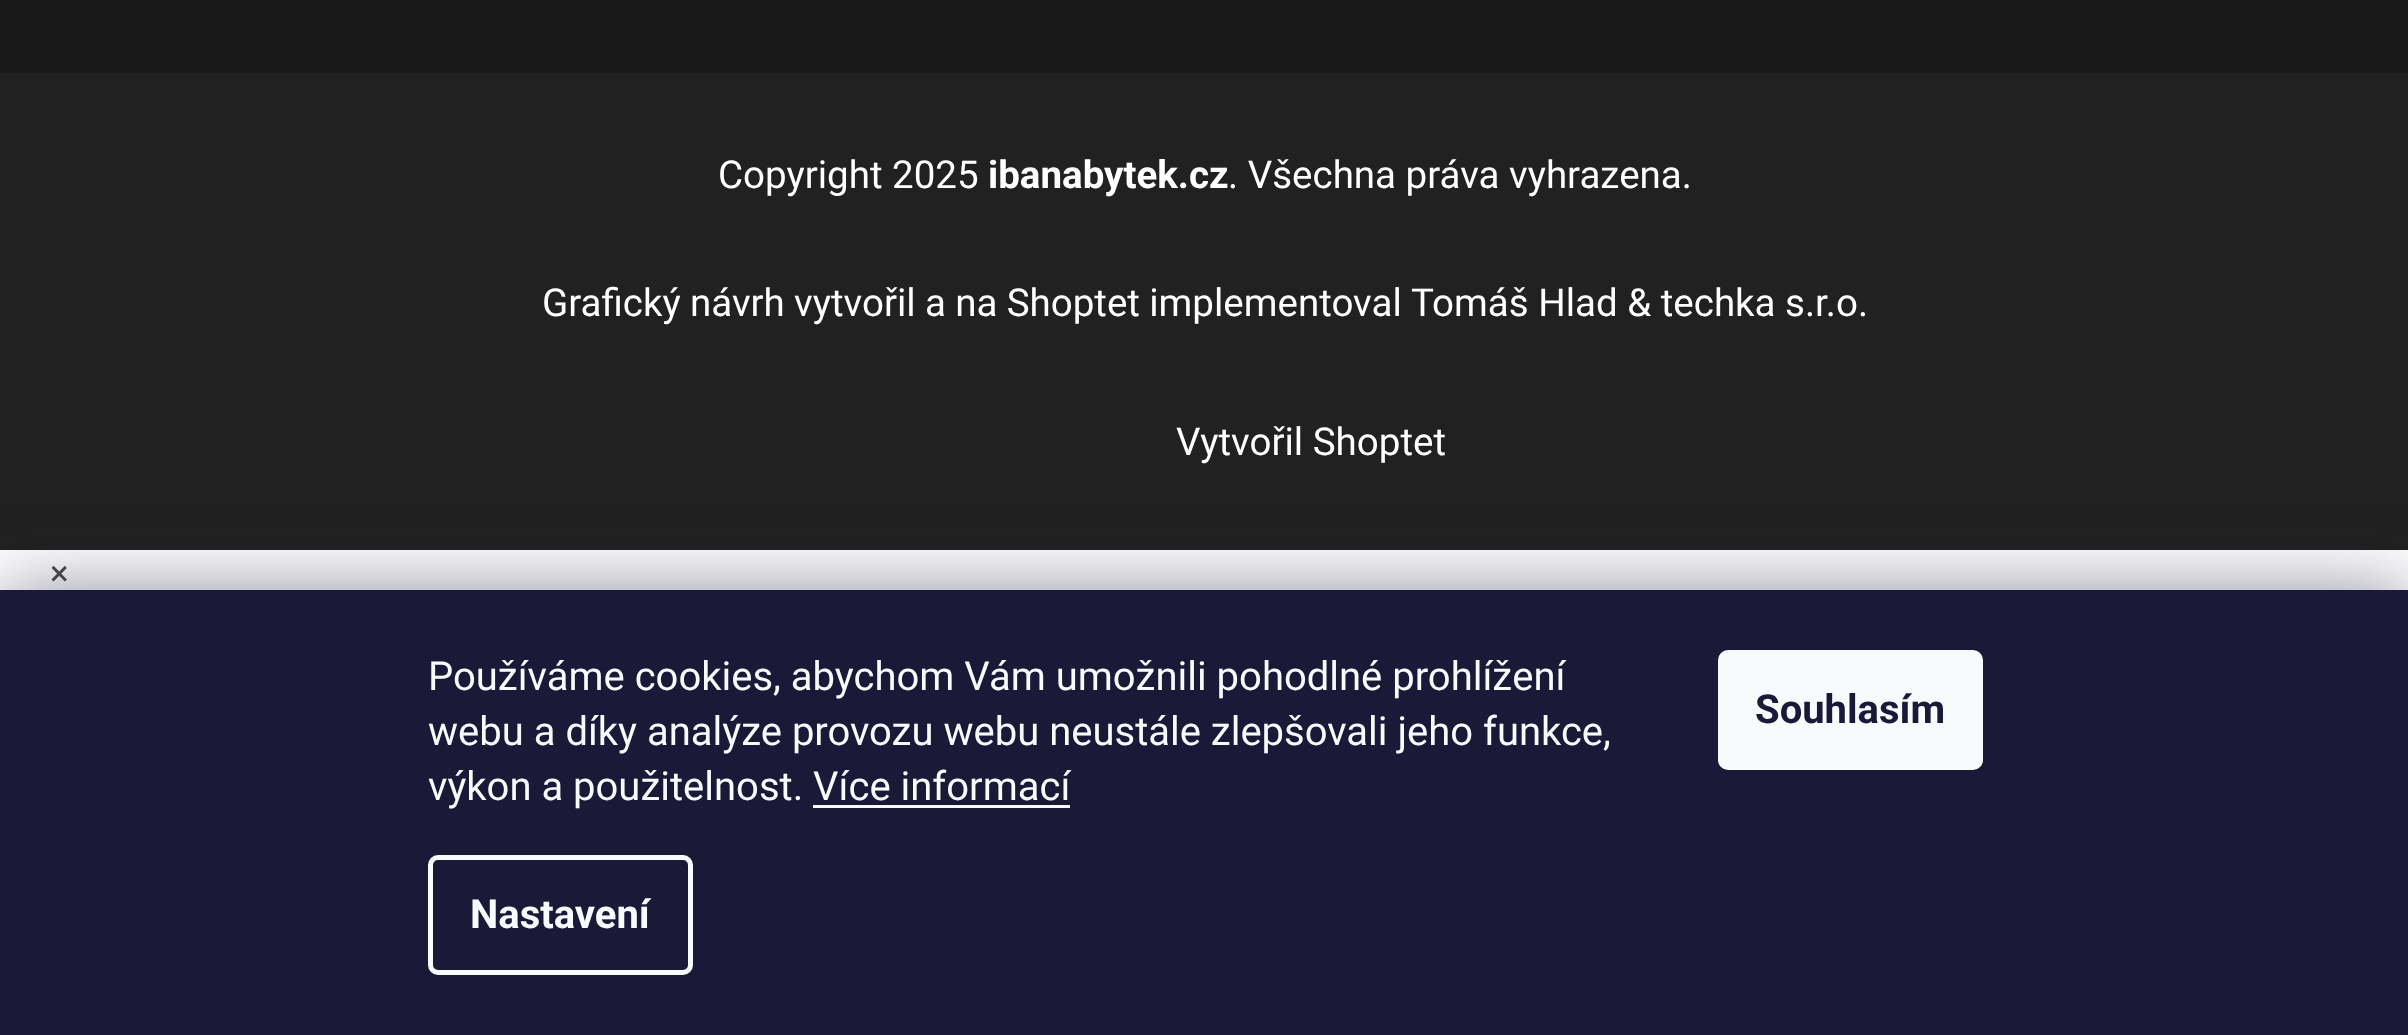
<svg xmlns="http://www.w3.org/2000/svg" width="2408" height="1035">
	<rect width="100%" height="100%" fill="#FFFFFF" />
	<rect x="0" y="0" width="2408" height="73" fill="#191919" />
	<rect x="0" y="73" width="2408" height="477" fill="#212121" />
	<text x="718" y="188" font-family="Roboto" font-size="38.5" fill="#FFFFFF">Copyright 2025</text>
	<text x="988" y="188" font-family="Roboto" font-size="38.5" font-weight="700" fill="#FFFFFF">ibanabytek.cz</text>
	<g font-family="Roboto" font-size="38.5" fill="#FFFFFF">
		<text x="1228" y="188">. Všechna práva vyhrazena.</text>
		<text x="542" y="316" word-spacing="-0.25">Grafický návrh vytvořil a na Shoptet implementoval</text>
		<text x="1411" y="316">Tomáš Hlad &amp; techka s.r.o.</text>
		<text x="1176" y="455">Vytvořil Shoptet</text>
	</g>
	<text x="50" y="585" font-family="Roboto" font-size="35" fill="#4D4D4D">×</text>
	<rect x="0" y="590" width="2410" height="445" fill="#1B1939" fill-opacity="0.5" filter="blur(37.5px)" />
	<rect x="0" y="590" width="2408" height="445" fill="#1A1937" />
	<g font-family="Roboto" font-size="40" fill="#F8FAFB">
		<text x="428" y="690">Používáme cookies, abychom Vám umožnili pohodlné prohlížení</text>
		<text x="428" y="745">webu a díky analýze provozu webu neustále zlepšovali jeho funkce,</text>
		<text x="428" y="800">výkon a použitelnost. Více informací</text>
	</g>
	<rect x="813" y="805" width="257" height="3" fill="#F8FAFB" />
	<rect x="430.5" y="857.5" width="260" height="115" rx="7.5" fill="none" stroke="#F8FAFB" stroke-width="5" />
	<text x="470" y="928" font-family="Roboto" font-size="40" font-weight="700" fill="#F8FAFB">Nastavení</text>
	<rect x="1718" y="650" width="265" height="120" rx="10" fill="#F8FAFB" />
	<text x="1755" y="723" font-family="Roboto" font-size="40" font-weight="700" fill="#1A1937">Souhlasím</text>
</svg>
